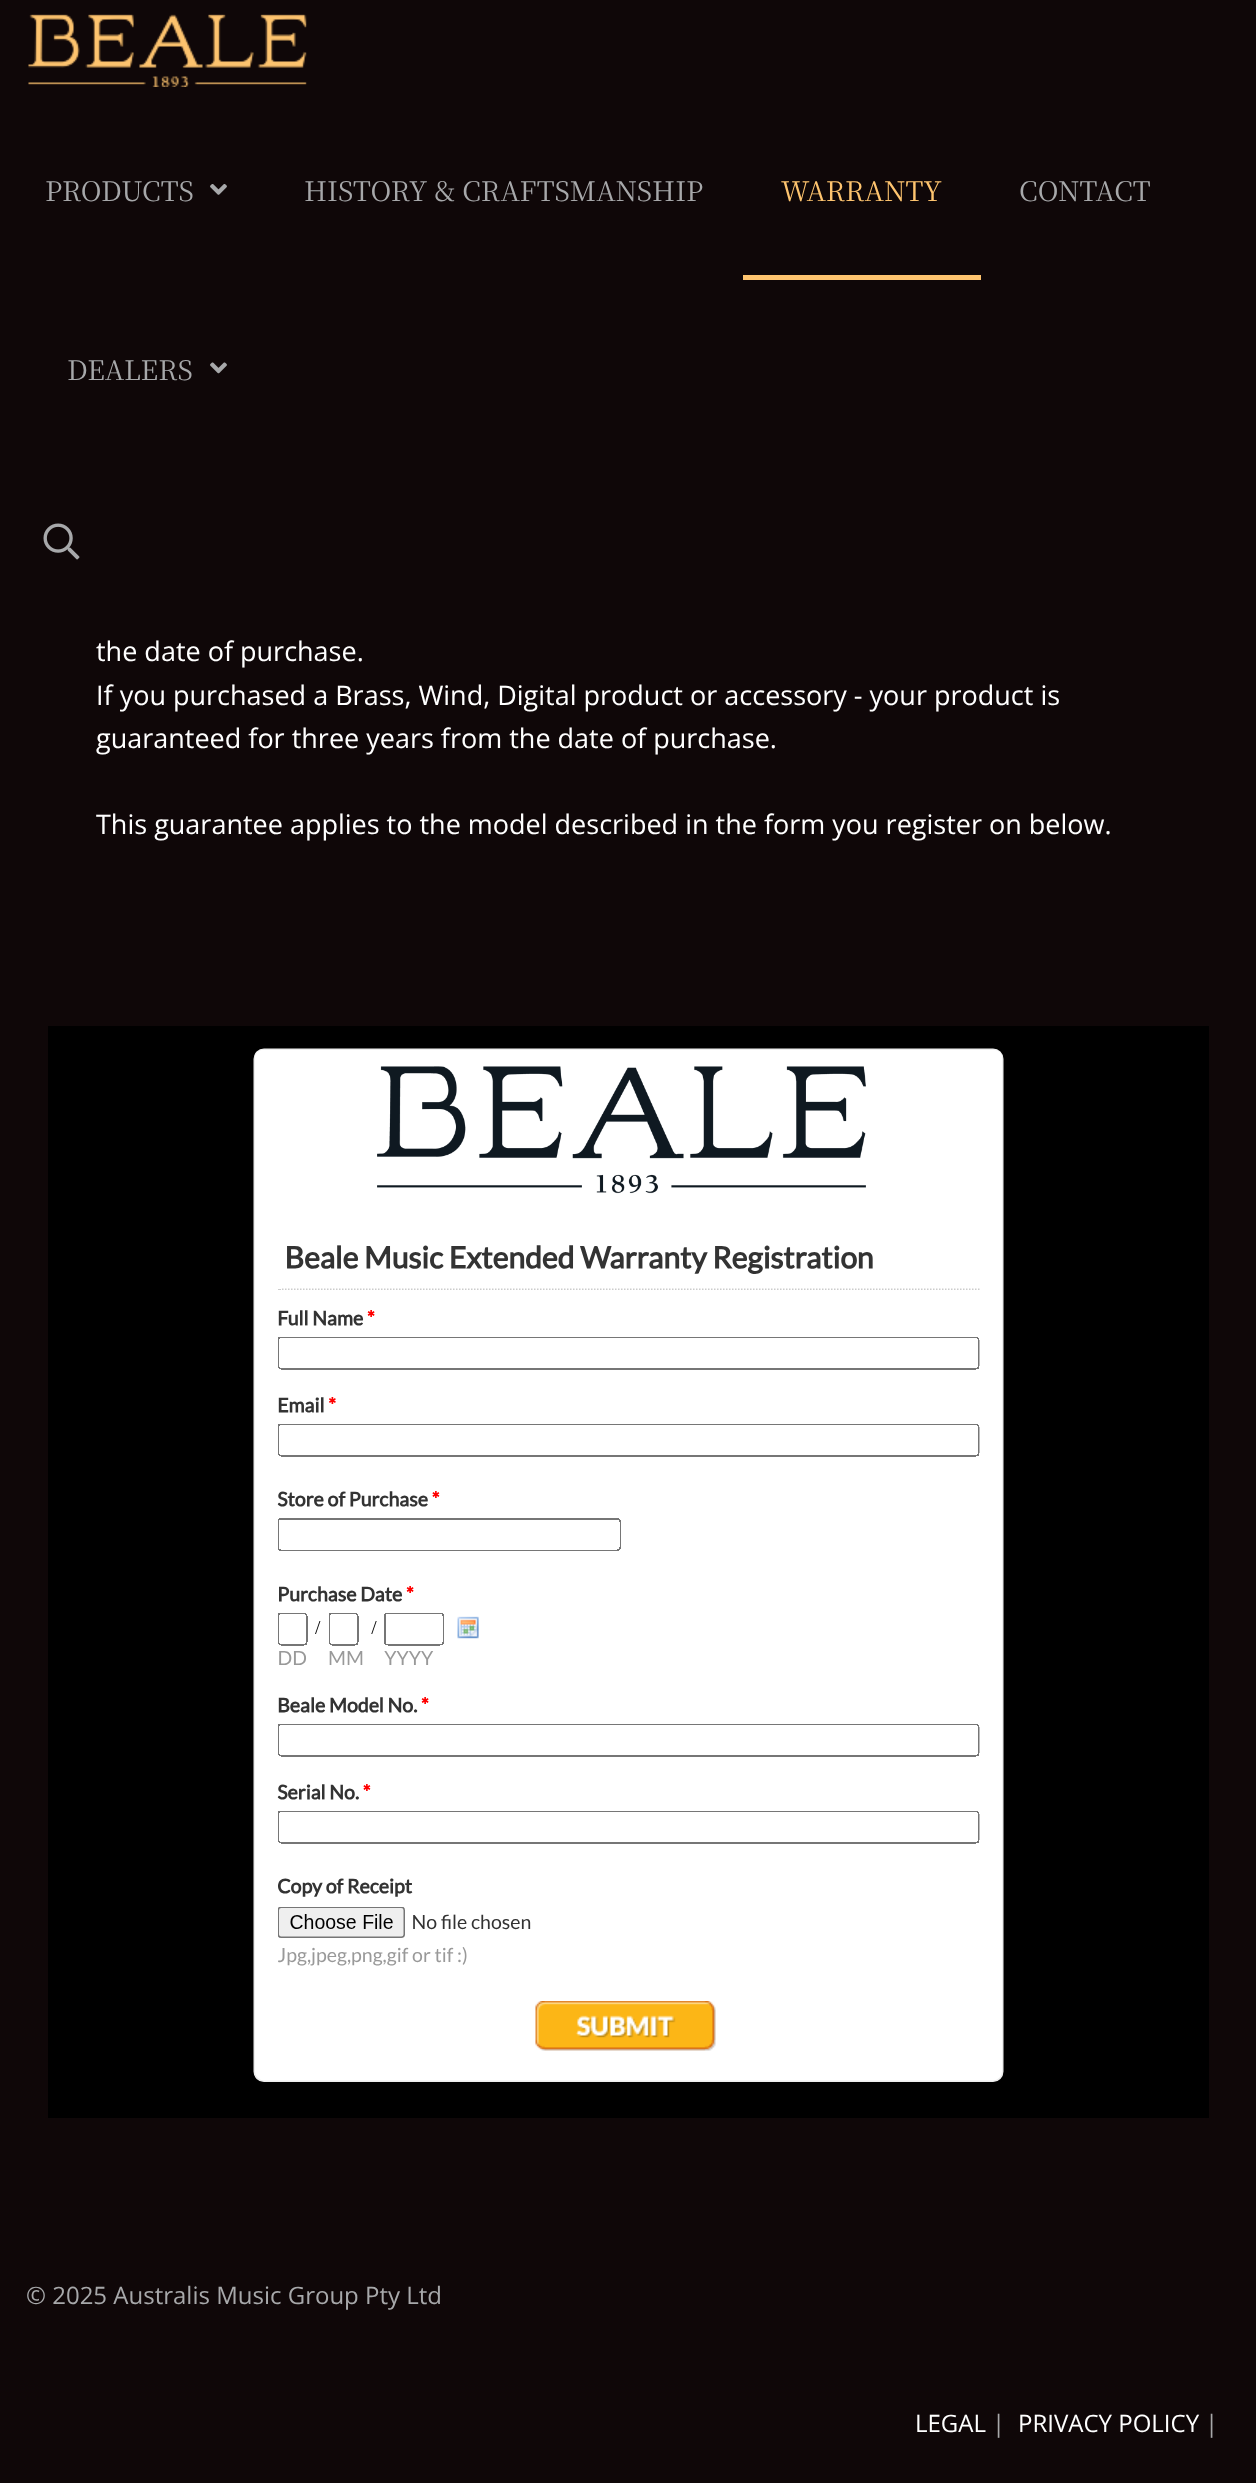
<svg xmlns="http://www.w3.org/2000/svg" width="1256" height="2483">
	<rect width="100%" height="100%" fill="#0F0708" />
	<image x="28" y="14" width="279" height="73" href="assets/img1.png" />
	<text x="45" y="201" font-family="Noto Serif TC" font-size="27" fill="#A7A8AA">PRODUCTS</text>
	<image x="210" y="184" width="17" height="11" href="assets/img2.png" />
	<text x="304" y="201" font-family="Noto Serif TC" font-size="27" fill="#A7A8AA">HISTORY &amp; CRAFTSMANSHIP</text>
	<rect x="743" y="275" width="238" height="5" fill="#FEC46F" />
	<text x="781" y="201" font-family="Noto Serif TC" font-size="27" fill="#FEC46F">WARRANTY</text>
	<g font-family="Noto Serif TC" font-size="27" fill="#A7A8AA">
		<text x="1019" y="201">CONTACT</text>
		<text x="67" y="380">DEALERS</text>
	</g>
	<image x="210" y="362" width="17" height="12" href="assets/img3.png" />
	<image x="43" y="523" width="37" height="37" href="assets/img4.png" />
	<g font-family="Open Sans" font-size="27" fill="#FFFFFF">
		<text x="96" y="661">the date of purchase.</text>
		<text x="96" y="705">If you purchased a Brass, Wind, Digital product or accessory - your product is</text>
		<text x="96" y="748">guaranteed for three years from the date of purchase.</text>
		<text x="96" y="834">This guarantee applies to the model described in the form you register on below.</text>
	</g>
	<image x="48" y="1026" width="1161" height="1092" href="assets/img5.png" />
	<text x="26" y="2304" font-family="Open Sans" font-size="24" fill="#A7A8AA">© 2025 Australis Music Group Pty Ltd</text>
	<text x="915" y="2432" font-family="Open Sans" font-size="24" fill="#FFFFFF">LEGAL</text>
	<text x="992" y="2432" font-family="Open Sans" font-size="24" fill="#A7A8AA">|</text>
	<text x="1018" y="2432" font-family="Open Sans" font-size="24" fill="#FFFFFF">PRIVACY POLICY</text>
	<text x="1205" y="2432" font-family="Open Sans" font-size="24" fill="#A7A8AA">|</text>
</svg>
